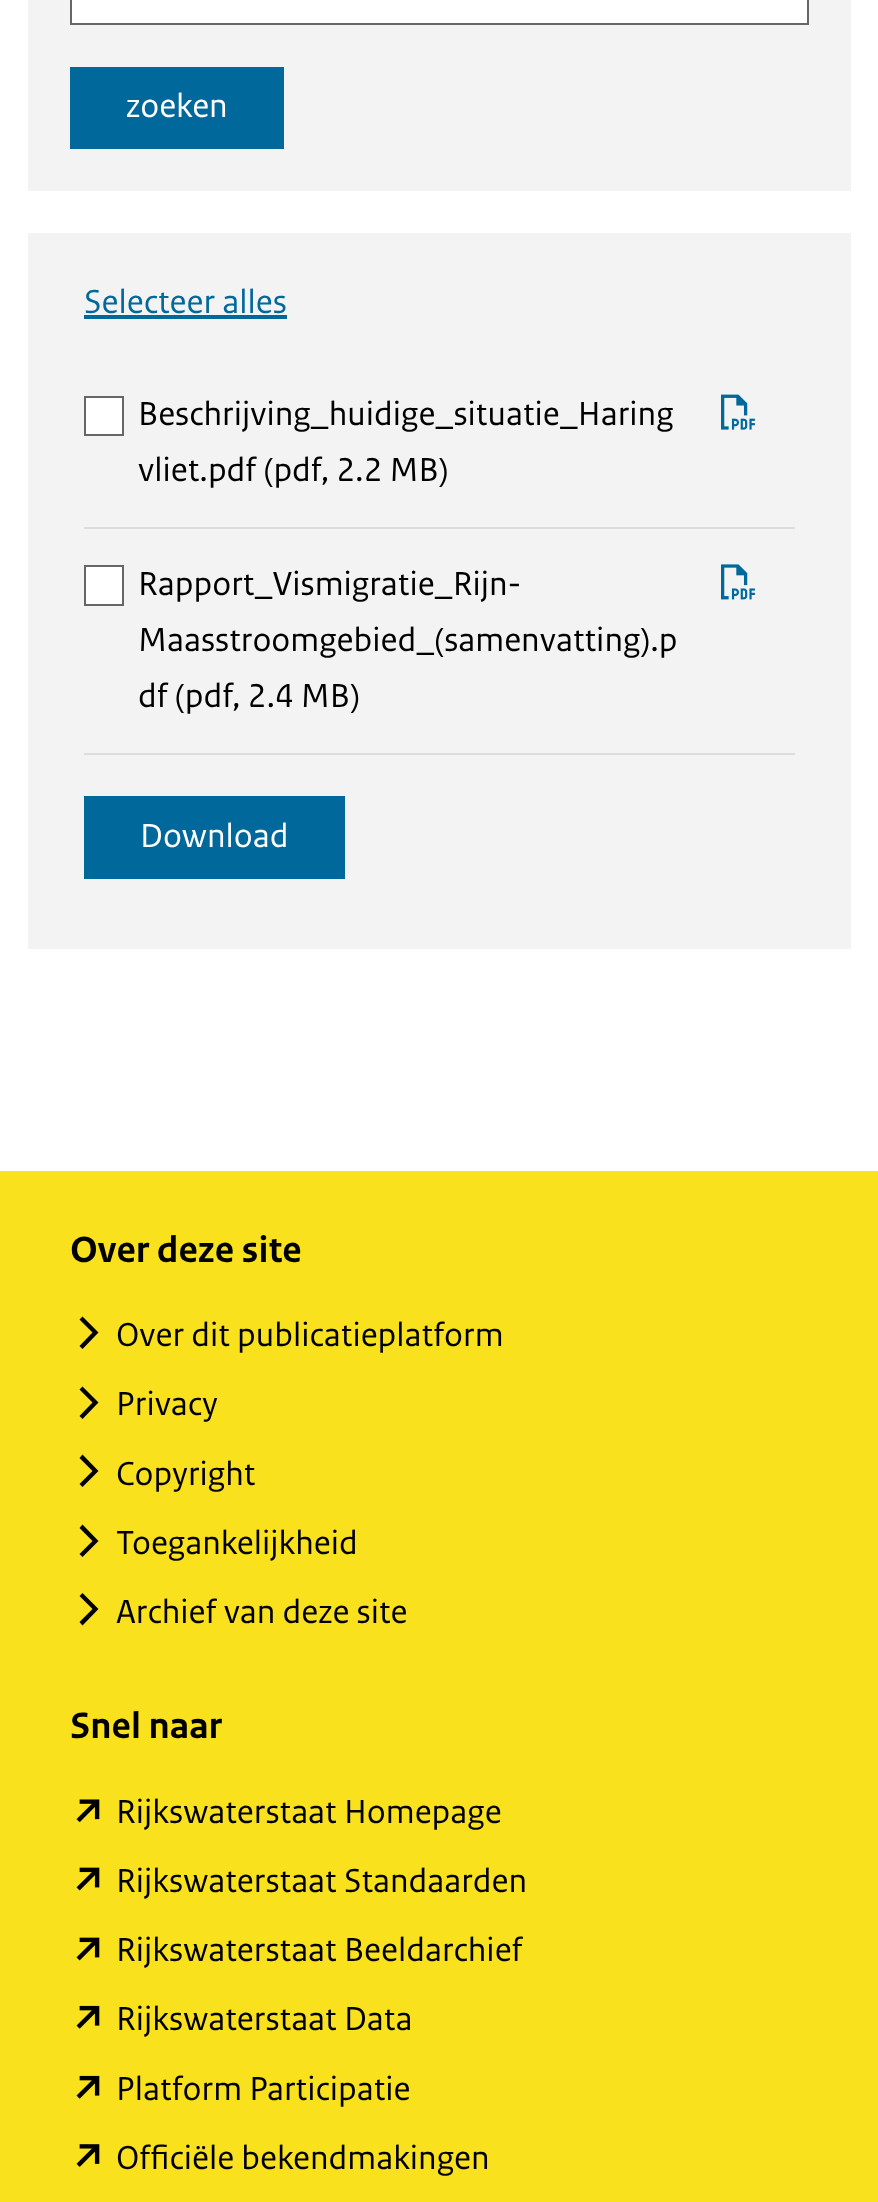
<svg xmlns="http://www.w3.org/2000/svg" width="878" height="2202">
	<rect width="100%" height="100%" fill="#FFFFFF" />
	<rect x="28" y="0" width="823" height="191" fill="#F3F3F3" />
	<rect x="71" y="-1" width="737" height="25" fill="#FFFFFF" stroke="#666666" stroke-width="2" />
	<rect x="70" y="67" width="214" height="82" fill="#01689B" />
	<text x="126" y="117" font-family="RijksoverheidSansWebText" font-size="35" fill="#FFFFFF">zoeken</text>
	<rect x="28" y="233" width="823" height="716" fill="#F3F3F3" />
	<text x="84" y="313" font-family="RijksoverheidSansWebText" font-size="35" fill="#01689B">Selecteer alles</text>
	<rect x="84" y="315" width="203" height="4" fill="#01689B" />
	<rect x="84" y="527" width="711" height="2" fill="#DDDDDD" />
	<rect x="85" y="397" width="38" height="38" fill="#FFFFFF" stroke="#666666" stroke-width="2" />
	<g font-family="RijksoverheidSansWebText" font-size="35" fill="#000000">
		<text x="138" y="425">Beschrijving_huidige_situatie_Haring</text>
		<text x="138" y="481">vliet.pdf (pdf, 2.2 MB)</text>
	</g>
	<image x="721" y="394" width="34" height="36" href="assets/img1.png" />
	<rect x="84" y="753" width="711" height="2" fill="#DDDDDD" />
	<rect x="85" y="566" width="38" height="39" fill="#FFFFFF" stroke="#666666" stroke-width="2" />
	<g font-family="RijksoverheidSansWebText" font-size="35" fill="#000000">
		<text x="138" y="595">Rapport_Vismigratie_Rijn-</text>
		<text x="138" y="651">Maasstroomgebied_(samenvatting).p</text>
		<text x="138" y="707">df (pdf, 2.4 MB)</text>
	</g>
	<image x="721" y="564" width="34" height="36" href="assets/img2.png" />
	<rect x="84" y="796" width="261" height="83" fill="#01689B" />
	<text x="140" y="847" font-family="RijksoverheidSansWebText" font-size="35" fill="#FFFFFF">Download</text>
	<rect x="0" y="1171" width="878" height="1031" fill="#F9E11E" />
	<text x="70" y="1262" font-family="RijksoverheidSansWebText" font-size="38.5" font-weight="700" fill="#000000">Over deze site</text>
	<path d="M98.5 1332.5L82.5 1349L79.5 1346L92.5 1332.5L79.5 1319.5L82.5 1316.5Z" fill="#000000" />
	<text x="116" y="1346" font-family="RijksoverheidSansWebText" font-size="35" fill="#000000">Over dit publicatieplatform</text>
	<path d="M98.5 1402.5L82.5 1419L79.5 1416L92.5 1402.5L79.5 1389.5L82.5 1386.5Z" fill="#000000" />
	<text x="116" y="1415" font-family="RijksoverheidSansWebText" font-size="35" fill="#000000">Privacy</text>
	<path d="M98.5 1471L82.5 1487L79.5 1484L92.5 1471L79.5 1458L82.5 1454.5Z" fill="#000000" />
	<text x="116" y="1485" font-family="RijksoverheidSansWebText" font-size="35" fill="#000000">Copyright</text>
	<path d="M98.5 1541L82.5 1557L79.5 1554L92.5 1541L79.5 1528L82.5 1524.5Z" fill="#000000" />
	<text x="116" y="1554" font-family="RijksoverheidSansWebText" font-size="35" fill="#000000">Toegankelijkheid</text>
	<path d="M98.5 1609L82.5 1625.5L79.5 1622L92.5 1609L79.5 1596L82.5 1593Z" fill="#000000" />
	<text x="116" y="1623" font-family="RijksoverheidSansWebText" font-size="35" fill="#000000">Archief van deze site</text>
	<text x="70" y="1738" font-family="RijksoverheidSansWebText" font-size="38.5" font-weight="700" fill="#000000">Snel naar</text>
	<image x="76" y="1799" width="24" height="24" href="assets/img3.png" />
	<text x="116" y="1823" font-family="RijksoverheidSansWebText" font-size="35" fill="#000000">Rijkswaterstaat Homepage</text>
	<image x="76" y="1867" width="24" height="24" href="assets/img4.png" />
	<text x="116" y="1892" font-family="RijksoverheidSansWebText" font-size="35" fill="#000000">Rijkswaterstaat Standaarden</text>
	<image x="76" y="1937" width="24" height="24" href="assets/img4.png" />
	<text x="116" y="1961" font-family="RijksoverheidSansWebText" font-size="35" fill="#000000">Rijkswaterstaat Beeldarchief</text>
	<image x="76" y="2005" width="24" height="24" href="assets/img5.png" />
	<text x="116" y="2030" font-family="RijksoverheidSansWebText" font-size="35" fill="#000000">Rijkswaterstaat Data</text>
	<image x="76" y="2075" width="24" height="24" href="assets/img5.png" />
	<text x="116" y="2100" font-family="RijksoverheidSansWebText" font-size="35" fill="#000000">Platform Participatie</text>
	<image x="76" y="2144" width="24" height="23" href="assets/img6.png" />
	<text x="116" y="2169" font-family="RijksoverheidSansWebText" font-size="35" fill="#000000">Officiële bekendmakingen</text>
</svg>
